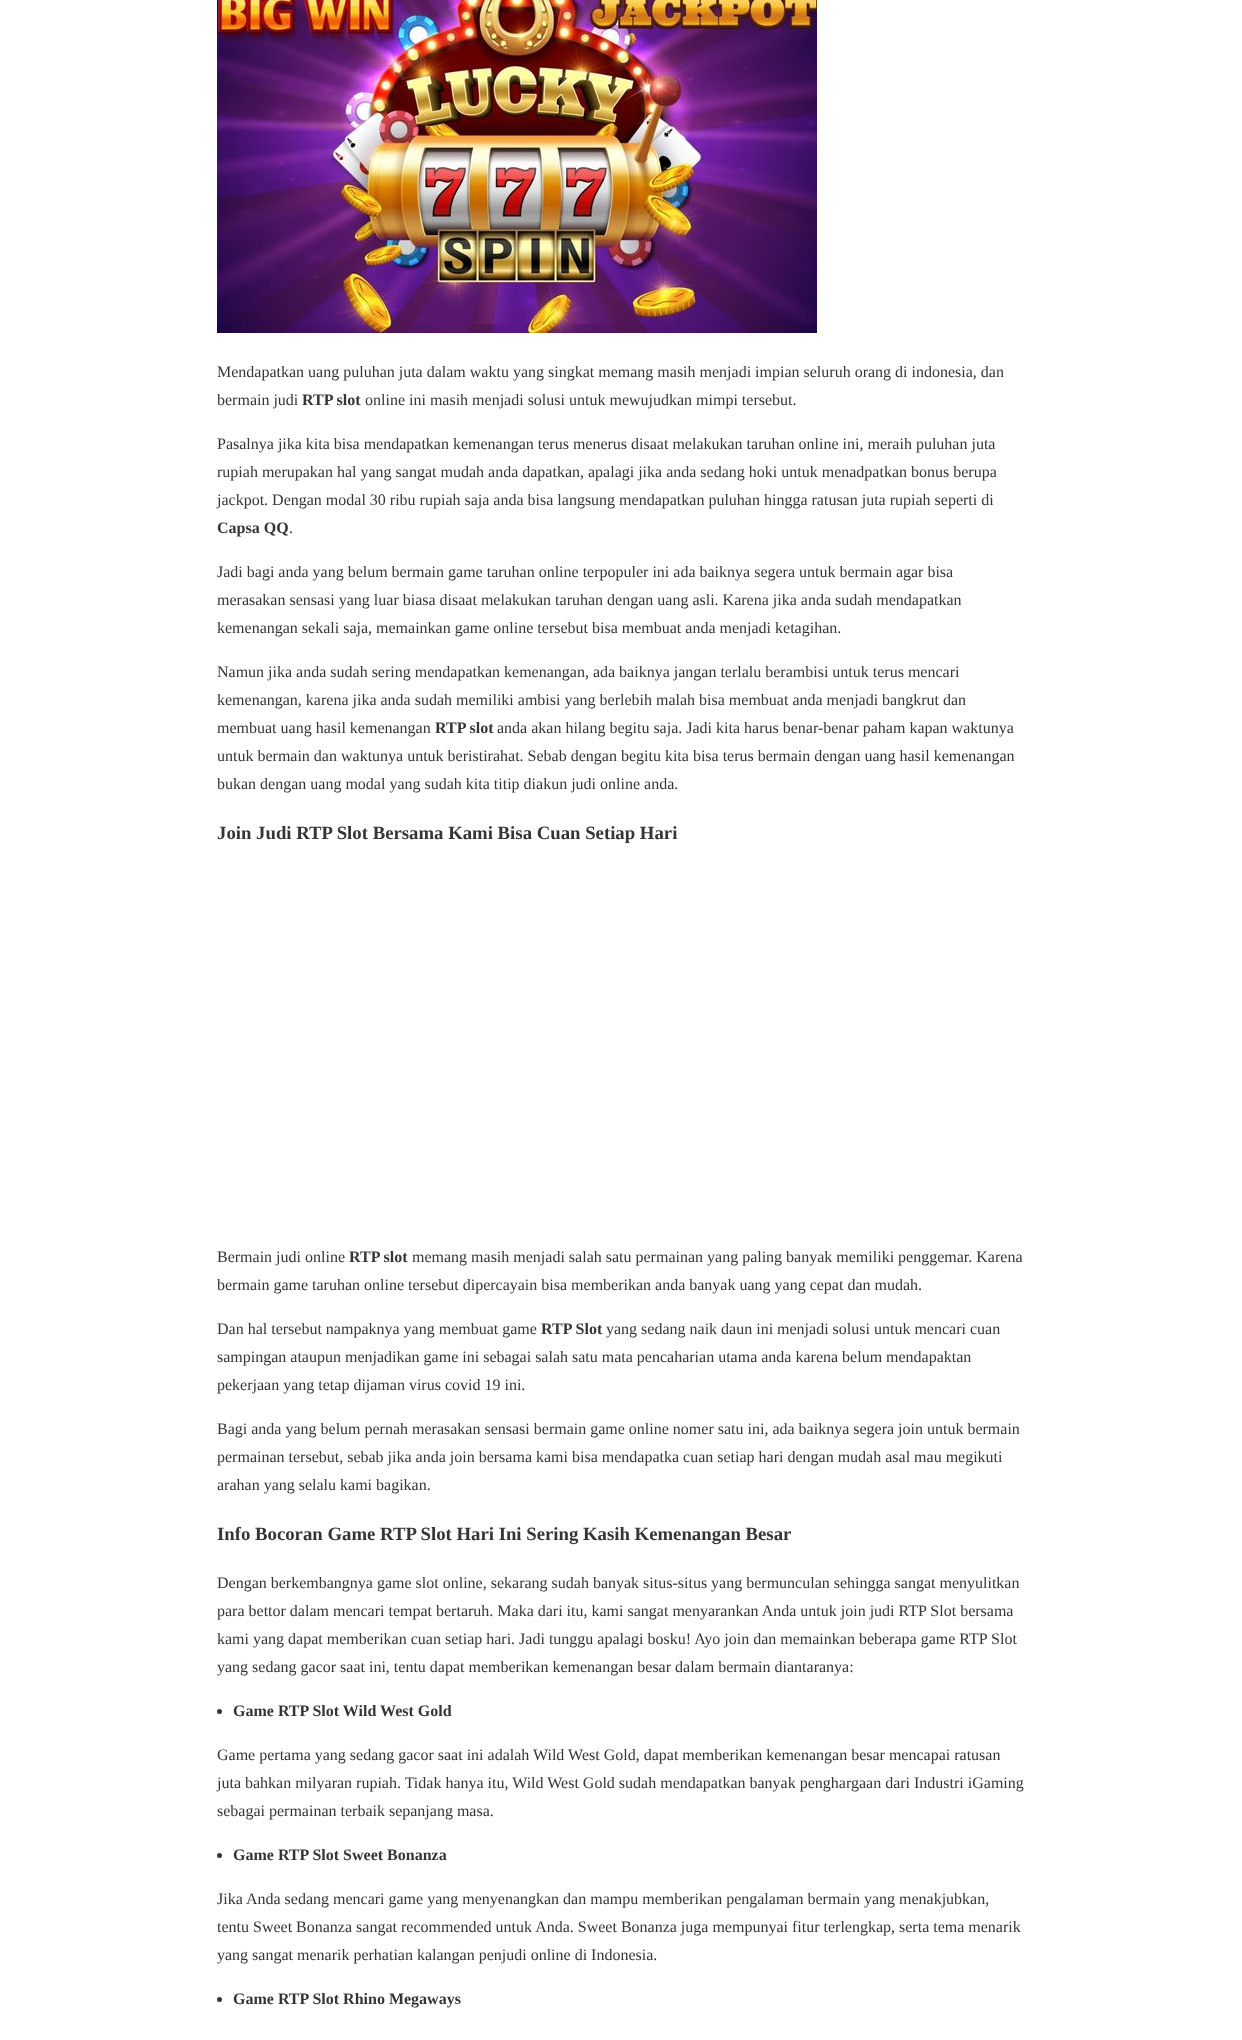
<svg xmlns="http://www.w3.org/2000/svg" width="1242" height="2040">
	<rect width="100%" height="100%" fill="#FFFFFF" />
	<image x="217" y="0" width="600" height="333" href="assets/img1.png" />
	<g font-family="Liberation Serif" font-size="16" fill="#353535">
		<text x="217" y="377">Mendapatkan uang puluhan juta dalam waktu yang singkat memang masih menjadi impian seluruh orang di indonesia, dan</text>
		<text x="217" y="405">bermain judi</text>
	</g>
	<text x="302" y="405" font-family="Liberation Serif" font-size="16" font-weight="700" fill="#353535">RTP slot</text>
	<g font-family="Liberation Serif" font-size="16" fill="#353535">
		<text x="365" y="405">online ini masih menjadi solusi untuk mewujudkan mimpi tersebut.</text>
		<text x="217" y="449">Pasalnya jika kita bisa mendapatkan kemenangan terus menerus disaat melakukan taruhan online ini, meraih puluhan juta</text>
		<text x="217" y="477">rupiah merupakan hal yang sangat mudah anda dapatkan, apalagi jika anda sedang hoki untuk menadpatkan bonus berupa</text>
		<text x="217" y="505">jackpot. Dengan modal 30 ribu rupiah saja anda bisa langsung mendapatkan puluhan hingga ratusan juta rupiah seperti di</text>
	</g>
	<text x="217" y="533" font-family="Liberation Serif" font-size="16" font-weight="700" fill="#353535">Capsa QQ</text>
	<g font-family="Liberation Serif" font-size="16" fill="#353535">
		<text x="289" y="533">.</text>
		<text x="217" y="577">Jadi bagi anda yang belum bermain game taruhan online terpopuler ini ada baiknya segera untuk bermain agar bisa</text>
		<text x="217" y="605">merasakan sensasi yang luar biasa disaat melakukan taruhan dengan uang asli. Karena jika anda sudah mendapatkan</text>
		<text x="217" y="633">kemenangan sekali saja, memainkan game online tersebut bisa membuat anda menjadi ketagihan.</text>
		<text x="217" y="677">Namun jika anda sudah sering mendapatkan kemenangan, ada baiknya jangan terlalu berambisi untuk terus mencari</text>
		<text x="217" y="705">kemenangan, karena jika anda sudah memiliki ambisi yang berlebih malah bisa membuat anda menjadi bangkrut dan</text>
		<text x="217" y="733">membuat uang hasil kemenangan</text>
	</g>
	<text x="435" y="733" font-family="Liberation Serif" font-size="16" font-weight="700" fill="#353535">RTP slot</text>
	<g font-family="Liberation Serif" font-size="16" fill="#353535">
		<text x="497" y="733">anda akan hilang begitu saja. Jadi kita harus benar-benar paham kapan waktunya</text>
		<text x="217" y="761">untuk bermain dan waktunya untuk beristirahat. Sebab dengan begitu kita bisa terus bermain dengan uang hasil kemenangan</text>
		<text x="217" y="789">bukan dengan uang modal yang sudah kita titip diakun judi online anda.</text>
	</g>
	<text x="217" y="839" font-family="Liberation Serif" font-size="18.75" font-weight="700" fill="#353535">Join Judi RTP Slot Bersama Kami Bisa Cuan Setiap Hari</text>
	<text x="217" y="1262" font-family="Liberation Serif" font-size="16" fill="#353535">Bermain judi online</text>
	<text x="349" y="1262" font-family="Liberation Serif" font-size="16" font-weight="700" fill="#353535">RTP slot</text>
	<g font-family="Liberation Serif" font-size="16" fill="#353535">
		<text x="412" y="1262">memang masih menjadi salah satu permainan yang paling banyak memiliki penggemar. Karena</text>
		<text x="217" y="1290">bermain game taruhan online tersebut dipercayain bisa memberikan anda banyak uang yang cepat dan mudah.</text>
		<text x="217" y="1334">Dan hal tersebut nampaknya yang membuat game</text>
	</g>
	<text x="541" y="1334" font-family="Liberation Serif" font-size="16" font-weight="700" fill="#353535">RTP Slot</text>
	<g font-family="Liberation Serif" font-size="16" fill="#353535">
		<text x="606" y="1334">yang sedang naik daun ini menjadi solusi untuk mencari cuan</text>
		<text x="217" y="1362">sampingan ataupun menjadikan game ini sebagai salah satu mata pencaharian utama anda karena belum mendapaktan</text>
		<text x="217" y="1390">pekerjaan yang tetap dijaman virus covid 19 ini.</text>
		<text x="217" y="1434">Bagi anda yang belum pernah merasakan sensasi bermain game online nomer satu ini, ada baiknya segera join untuk bermain</text>
		<text x="217" y="1462">permainan tersebut, sebab jika anda join bersama kami bisa mendapatka cuan setiap hari dengan mudah asal mau megikuti</text>
		<text x="217" y="1490">arahan yang selalu kami bagikan.</text>
	</g>
	<text x="217" y="1540" font-family="Liberation Serif" font-size="18.75" font-weight="700" fill="#353535">Info Bocoran Game RTP Slot Hari Ini Sering Kasih Kemenangan Besar</text>
	<g font-family="Liberation Serif" font-size="16" fill="#353535">
		<text x="217" y="1588">Dengan berkembangnya game slot online, sekarang sudah banyak situs-situs yang bermunculan sehingga sangat menyulitkan</text>
		<text x="217" y="1616">para bettor dalam mencari tempat bertaruh. Maka dari itu, kami sangat menyarankan Anda untuk join judi RTP Slot bersama</text>
		<text x="217" y="1644">kami yang dapat memberikan cuan setiap hari. Jadi tunggu apalagi bosku! Ayo join dan memainkan beberapa game RTP Slot</text>
		<text x="217" y="1672">yang sedang gacor saat ini, tentu dapat memberikan kemenangan besar dalam bermain diantaranya:</text>
	</g>
	<circle cx="219.5" cy="1711.5" r="2.5" fill="#353535" />
	<text x="233" y="1716" font-family="Liberation Serif" font-size="16" font-weight="700" fill="#353535">Game RTP Slot Wild West Gold</text>
	<g font-family="Liberation Serif" font-size="16" fill="#353535">
		<text x="217" y="1760">Game pertama yang sedang gacor saat ini adalah Wild West Gold, dapat memberikan kemenangan besar mencapai ratusan</text>
		<text x="217" y="1788">juta bahkan milyaran rupiah. Tidak hanya itu, Wild West Gold sudah mendapatkan banyak penghargaan dari Industri iGaming</text>
		<text x="217" y="1816">sebagai permainan terbaik sepanjang masa.</text>
	</g>
	<circle cx="219.5" cy="1855.5" r="2.5" fill="#353535" />
	<text x="233" y="1860" font-family="Liberation Serif" font-size="16" font-weight="700" fill="#353535">Game RTP Slot Sweet Bonanza</text>
	<g font-family="Liberation Serif" font-size="16" fill="#353535">
		<text x="217" y="1904">Jika Anda sedang mencari game yang menyenangkan dan mampu memberikan pengalaman bermain yang menakjubkan,</text>
		<text x="217" y="1932">tentu Sweet Bonanza sangat recommended untuk Anda. Sweet Bonanza juga mempunyai fitur terlengkap, serta tema menarik</text>
		<text x="217" y="1960">yang sangat menarik perhatian kalangan penjudi online di Indonesia.</text>
	</g>
	<circle cx="219.5" cy="1999.5" r="2.5" fill="#353535" />
	<text x="233" y="2004" font-family="Liberation Serif" font-size="16" font-weight="700" fill="#353535">Game RTP Slot Rhino Megaways</text>
</svg>
